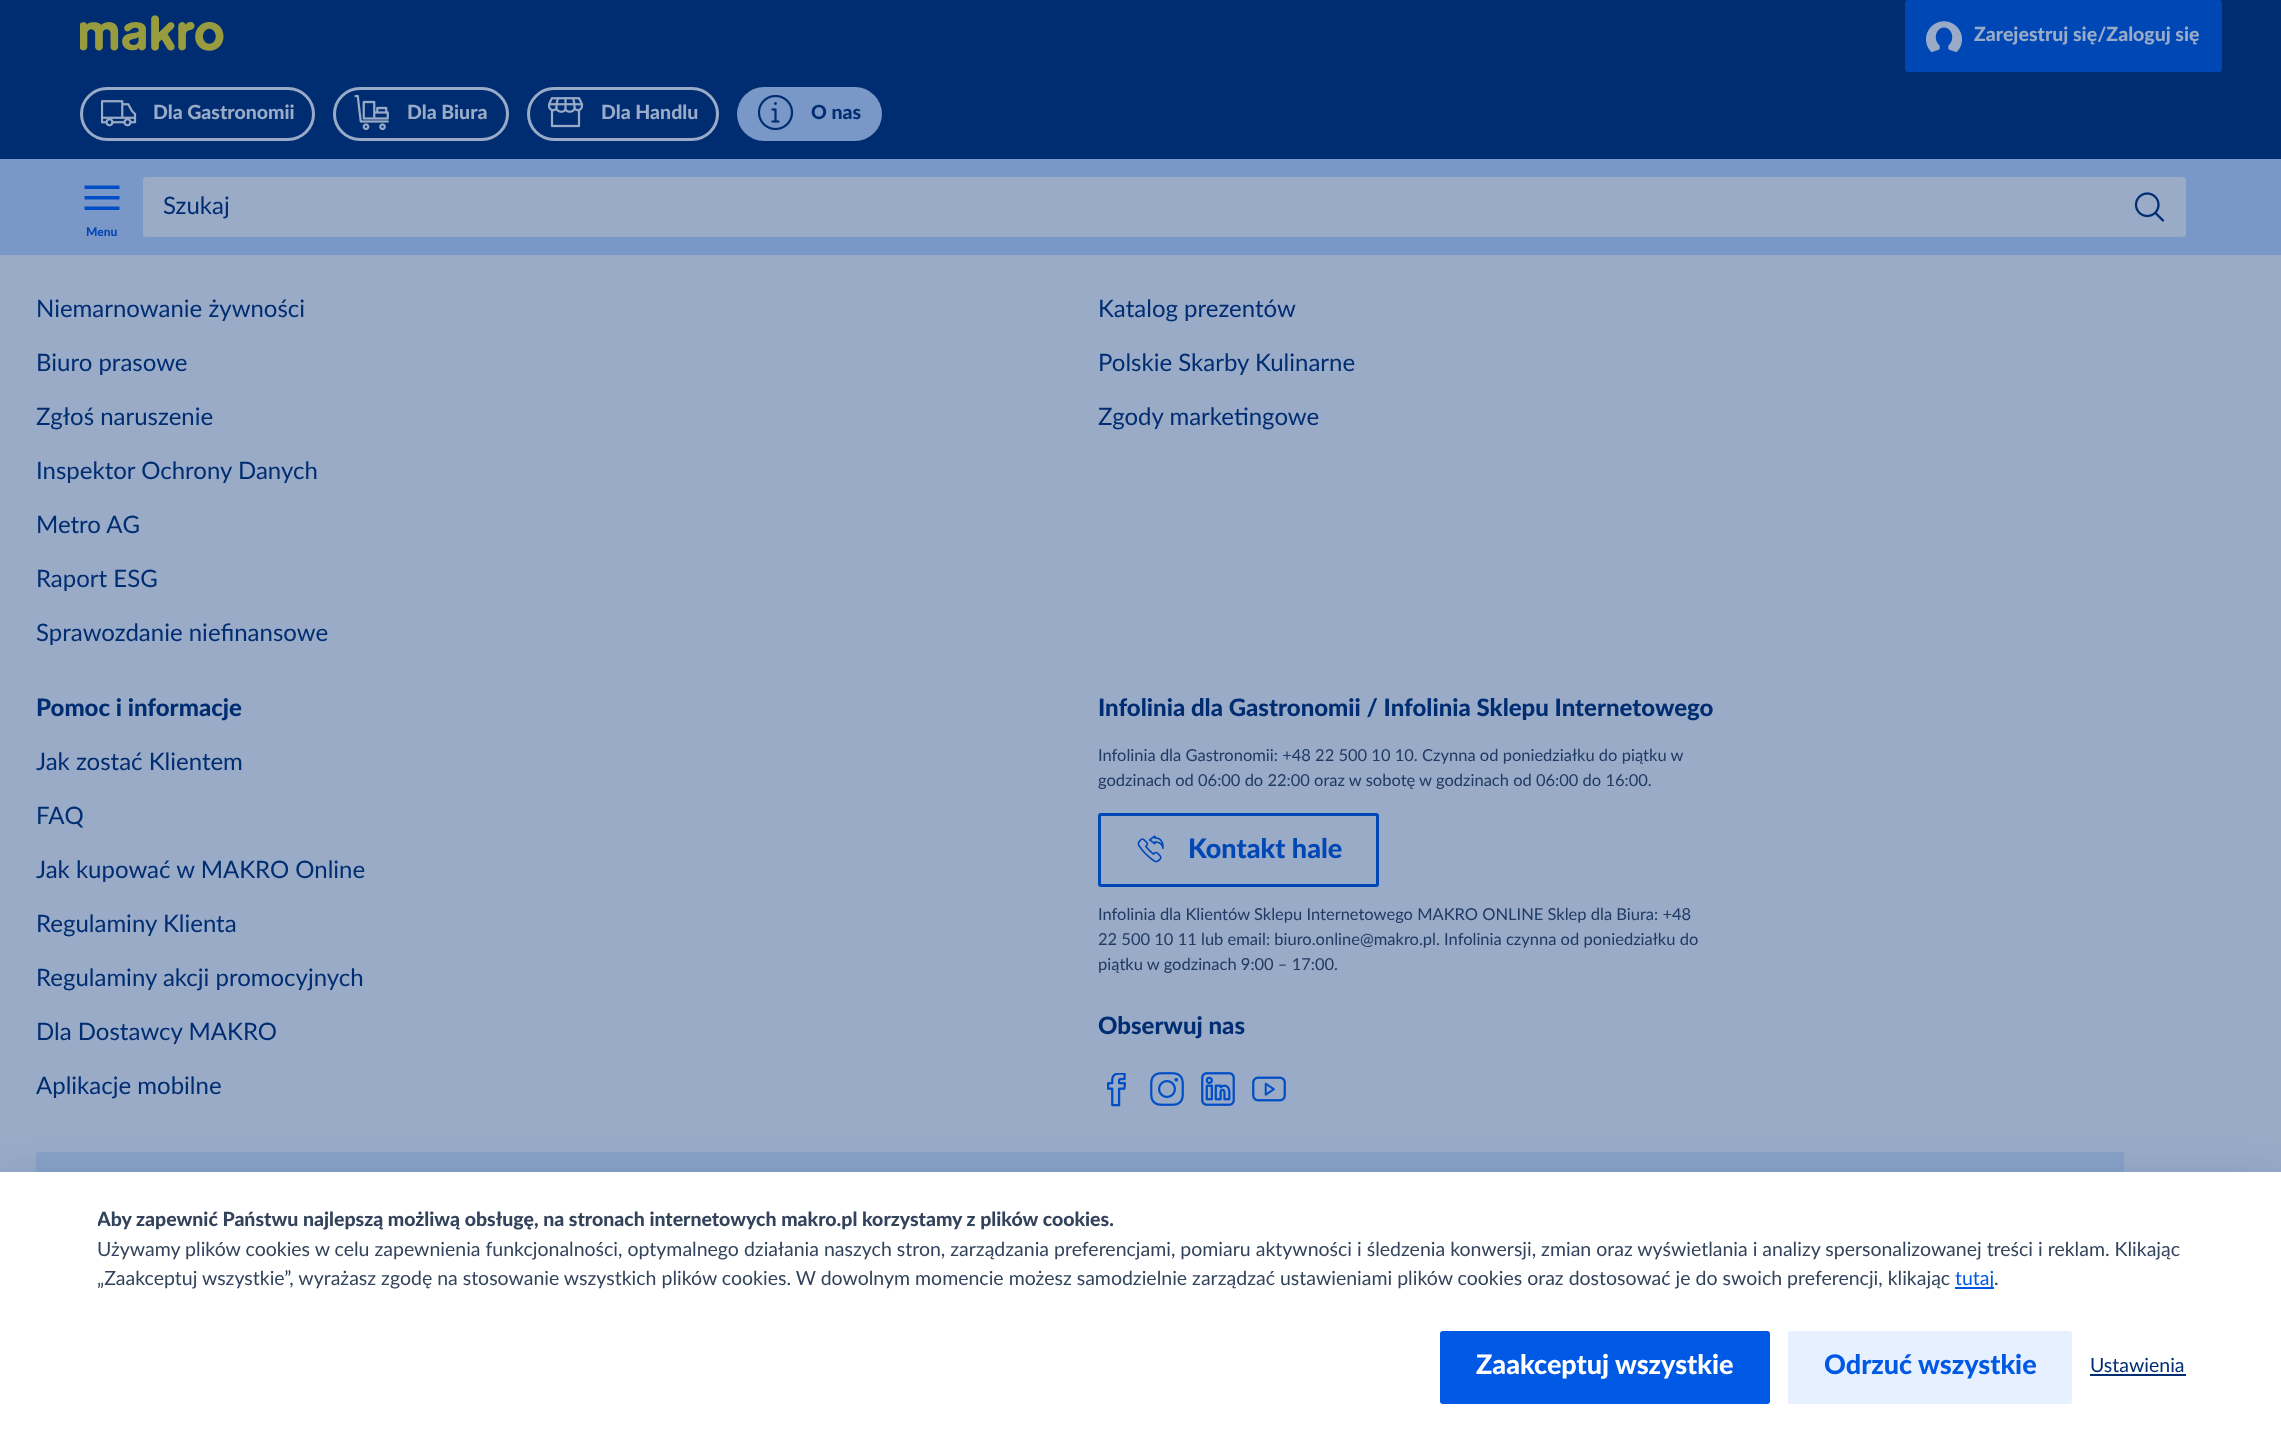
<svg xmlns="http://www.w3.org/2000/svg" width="2281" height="1439">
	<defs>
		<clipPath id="clip1"><rect x="98" y="1208" width="2088" height="87" /></clipPath>
	</defs>
	<rect width="100%" height="100%" fill="#99ABC7" />
	<rect x="0" y="0" width="2281" height="159" fill="#002D72" />
	<image x="80" y="15" width="144" height="36" href="assets/img1.png" />
	<rect x="1906.5" y="1.5" width="314" height="69" rx="1.5" fill="#0047B6" stroke="#0047B6" stroke-width="3" />
	<image x="1926" y="21" width="36" height="32" href="assets/img2.png" />
	<text x="1974" y="41" font-family="Lato" font-size="19.5" font-weight="900" fill="#99ABC7">Zarejestruj się/Zaloguj się</text>
	<rect x="81.5" y="88.5" width="232" height="51" rx="25.5" fill="none" stroke="#99ABC7" stroke-width="3" />
	<image x="101" y="100" width="36" height="27" href="assets/img3.png" />
	<text x="153" y="119" font-family="Lato" font-size="19.5" font-weight="900" fill="#99ABC7">Dla Gastronomii</text>
	<rect x="334.5" y="88.5" width="173" height="51" rx="25.5" fill="none" stroke="#99ABC7" stroke-width="3" />
	<image x="354" y="95" width="35" height="36" href="assets/img4.png" />
	<text x="407" y="119" font-family="Lato" font-size="19.5" font-weight="900" fill="#99ABC7">Dla Biura</text>
	<rect x="528.5" y="88.5" width="189" height="51" rx="25.5" fill="none" stroke="#99ABC7" stroke-width="3" />
	<image x="548" y="97" width="36" height="31" href="assets/img5.png" />
	<text x="601" y="119" font-family="Lato" font-size="19.5" font-weight="900" fill="#99ABC7">Dla Handlu</text>
	<rect x="737" y="87" width="145" height="54" rx="27" fill="#7A98C7" />
	<image x="758" y="95" width="36" height="36" href="assets/img6.png" />
	<text x="811" y="119" font-family="Lato" font-size="19.5" font-weight="900" fill="#002D72">O nas</text>
	<rect x="0" y="159" width="2281" height="96" fill="#7A98C7" />
	<rect x="143" y="177" width="2043" height="60" rx="3" fill="#99ABC7" />
	<text x="163" y="214" font-family="Lato" font-size="24" fill="#002D72">Szukaj</text>
	<image x="2134" y="192" width="31" height="30" href="assets/img7.png" />
	<path d="M84.5 185.5V189H119.5V185.5ZM84.5 196V199.5H119.5V196ZM84.5 206.5V210H119.5V206.5Z" fill="#004EC6" />
	<text x="86" y="236" font-family="Lato" font-size="12" font-weight="900" fill="#0047B6">Menu</text>
	<g font-family="Lato" font-size="24" fill="#002D72">
		<text x="36" y="317">Niemarnowanie żywności</text>
		<text x="36" y="371">Biuro prasowe</text>
		<text x="36" y="425">Zgłoś naruszenie</text>
		<text x="36" y="479">Inspektor Ochrony Danych</text>
		<text x="36" y="533">Metro AG</text>
		<text x="36" y="587">Raport ESG</text>
		<text x="36" y="641">Sprawozdanie niefinansowe</text>
		<text x="1098" y="317">Katalog prezentów</text>
		<text x="1098" y="371">Polskie Skarby Kulinarne</text>
		<text x="1098" y="425">Zgody marketingowe</text>
	</g>
	<text x="36" y="716" font-family="Lato" font-size="24" font-weight="900" fill="#002D72">Pomoc i informacje</text>
	<g font-family="Lato" font-size="24" fill="#002D72">
		<text x="36" y="770">Jak zostać Klientem</text>
		<text x="36" y="824">FAQ</text>
		<text x="36" y="878">Jak kupować w MAKRO Online</text>
		<text x="36" y="932">Regulaminy Klienta</text>
		<text x="36" y="986">Regulaminy akcji promocyjnych</text>
		<text x="36" y="1040">Dla Dostawcy MAKRO</text>
		<text x="36" y="1094">Aplikacje mobilne</text>
	</g>
	<text x="1098" y="716" font-family="Lato" font-size="24" font-weight="900" fill="#002D72">Infolinia dla Gastronomii / Infolinia Sklepu Internetowego</text>
	<g font-family="Lato" font-size="16.5" fill="#1F3A64">
		<text x="1098" y="761">Infolinia dla Gastronomii: +48 22 500 10 10. Czynna od poniedziałku do piątku w</text>
		<text x="1098" y="786">godzinach od 06:00 do 22:00 oraz w sobotę w godzinach od 06:00 do 16:00.</text>
	</g>
	<rect x="1099.5" y="814.5" width="278" height="71" rx="1.5" fill="none" stroke="#0047B6" stroke-width="3" />
	<image x="1137" y="835" width="27" height="28" href="assets/img8.png" />
	<text x="1188" y="858" font-family="Lato" font-size="27" font-weight="900" fill="#0047B6">Kontakt hale</text>
	<g font-family="Lato" font-size="16.5" fill="#1F3A64">
		<text x="1098" y="920">Infolinia dla Klientów Sklepu Internetowego MAKRO ONLINE Sklep dla Biura: +48</text>
		<text x="1098" y="945">22 500 10 11 lub email: biuro.online@makro.pl. Infolinia czynna od poniedziałku do</text>
		<text x="1098" y="970">piątku w godzinach 9:00 – 17:00.</text>
	</g>
	<text x="1098" y="1034" font-family="Lato" font-size="24" font-weight="900" fill="#002D72">Obserwuj nas</text>
	<image x="1107" y="1073" width="20" height="34" href="assets/img9.png" />
	<image x="1150" y="1072" width="34" height="34" href="assets/img10.png" />
	<image x="1201" y="1072" width="34" height="34" href="assets/img11.png" />
	<image x="1252" y="1076" width="34" height="26" href="assets/img12.png" />
	<rect x="36" y="1152" width="2088" height="20" fill="#89A1C6" />
	<rect x="0" y="1184" width="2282" height="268" fill="#002D72" fill-opacity="0.2" filter="blur(24px)" />
	<rect x="0" y="1172" width="2281" height="267" fill="#FFFFFF" />
	<g clip-path="url(#clip1)">
		<text x="97" y="1226" font-family="Lato" font-size="19.5" font-weight="900" fill="#33435B">Aby zapewnić Państwu najlepszą możliwą obsługę, na stronach internetowych makro.pl korzystamy z plików cookies.</text>
	</g>
	<g font-family="Lato" font-size="19.5" fill="#33435B">
		<text x="97" y="1256">Używamy plików cookies w celu zapewnienia funkcjonalności, optymalnego działania naszych stron, zarządzania preferencjami, pomiaru aktywności i śledzenia konwersji, zmian oraz wyświetlania i analizy spersonalizowanej treści i reklam. Klikając</text>
		<text x="97" y="1285">„Zaakceptuj wszystkie”, wyrażasz zgodę na stosowanie wszystkich plików cookies. W dowolnym momencie możesz samodzielnie zarządzać ustawieniami plików cookies oraz dostosować je do swoich preferencji, klikając</text>
	</g>
	<rect x="1955" y="1287" width="39" height="2" fill="#0059E4" />
	<text x="1955" y="1285" font-family="Lato" font-size="19.5" fill="#0059E4">tutaj</text>
	<text x="1994" y="1285" font-family="Lato" font-size="19.5" fill="#33435B">.</text>
	<rect x="1441.5" y="1332.5" width="327" height="70" rx="1.5" fill="#0059E4" stroke="#0059E4" stroke-width="3" />
	<text x="1476" y="1374" font-family="Lato" font-size="27" font-weight="900" fill="#FFFFFF">Zaakceptuj wszystkie</text>
	<rect x="1789.5" y="1332.5" width="281" height="70" rx="1.5" fill="#E6F0FF" stroke="#E6F0FF" stroke-width="3" />
	<text x="1824" y="1374" font-family="Lato" font-size="27" font-weight="900" fill="#0059E4">Odrzuć wszystkie</text>
	<text x="2090" y="1372" font-family="Lato" font-size="19.5" fill="#002D72">Ustawienia</text>
	<rect x="2090" y="1374" width="96" height="2" fill="#002D72" />
</svg>
